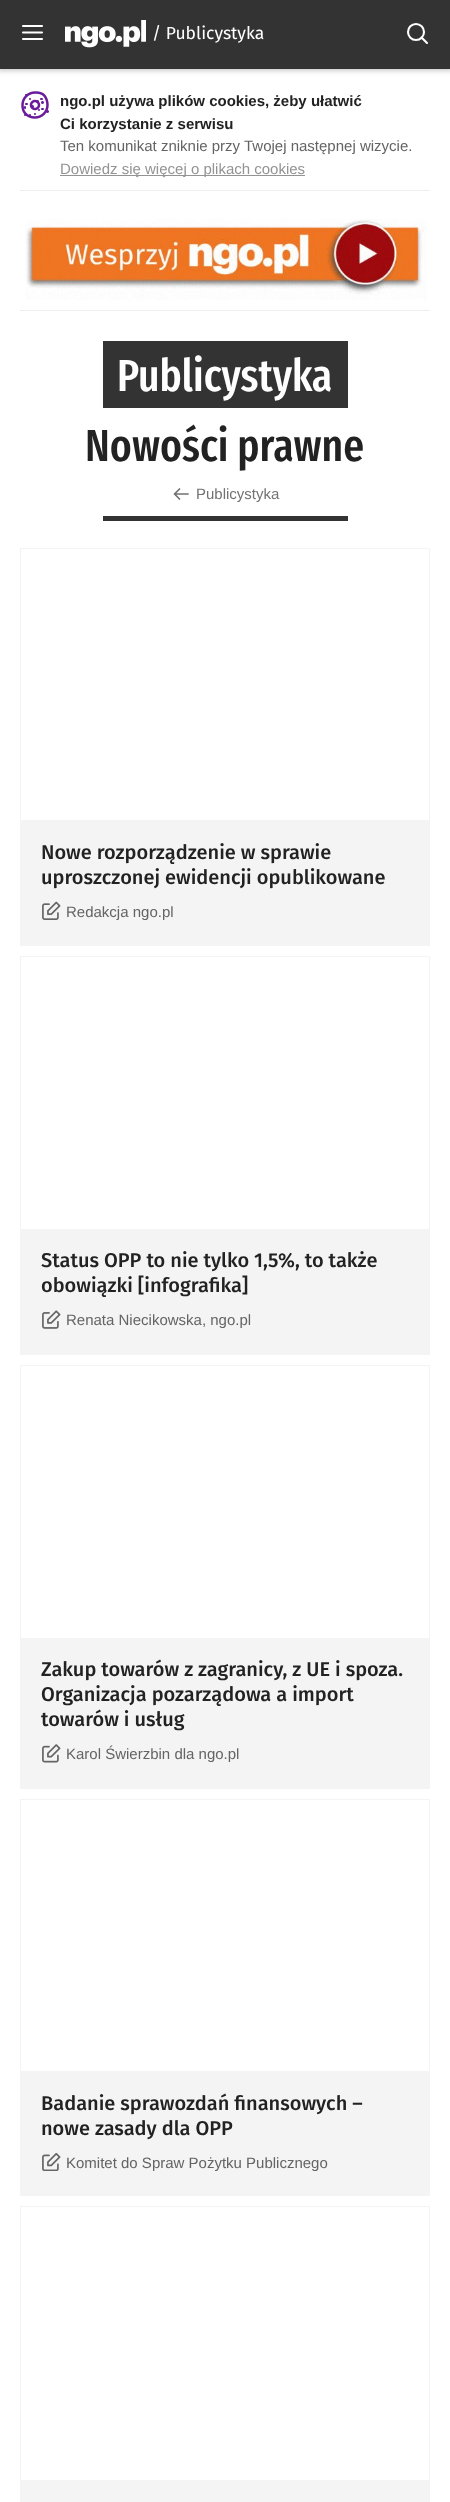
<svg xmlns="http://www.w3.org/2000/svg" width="450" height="2502">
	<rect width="100%" height="100%" fill="#FFFFFF" />
	<rect x="-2" y="-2" width="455" height="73" fill="#000000" fill-opacity="0.2" filter="blur(2.5px)" />
	<rect x="0" y="0" width="450" height="69" fill="#333333" />
	<path d="M23 32.5H42M23 26H42M23 39H42" fill="none" stroke="#FFFFFF" stroke-width="2.1" stroke-linecap="round" stroke-linejoin="round" />
	<image x="65" y="20" width="81" height="28" href="assets/img1.png" />
	<text x="152" y="39" font-family="Fira Sans" font-size="17.5" fill="#FFFFFF">/ Publicystyka</text>
	<circle cx="416" cy="32" r="8" fill="none" stroke="#FFFFFF" stroke-width="2.1" />
	<path d="M427 43L421.5 37.5" fill="none" stroke="#FFFFFF" stroke-width="2.1" stroke-linecap="round" stroke-linejoin="round" />
	<rect x="20" y="190" width="410" height="1" fill="#EEEEEE" />
	<image x="21" y="91" width="28" height="28" href="assets/img2.png" />
	<g font-family="Liberation Sans" font-size="15" font-weight="700" fill="#222222">
		<text x="60" y="106">ngo.pl używa plików cookies, żeby ułatwić</text>
		<text x="60" y="129">Ci korzystanie z serwisu</text>
	</g>
	<text x="60" y="151" font-family="Liberation Sans" font-size="15" fill="#646464">Ten komunikat zniknie przy Twojej następnej wizycie.</text>
	<rect x="60" y="175" width="245" height="1" fill="#939393" />
	<text x="60" y="174" font-family="Liberation Sans" font-size="15" fill="#939393">Dowiedz się więcej o plikach cookies</text>
	<rect x="20" y="310" width="410" height="1" fill="#EEEEEE" />
	<image x="25" y="219" width="402" height="81" href="assets/img3.png" />
	<rect x="103" y="341" width="245" height="67" fill="#333333" />
	<text x="117" y="391" font-family="Fira Sans Extra Condensed" font-size="45" font-weight="500" fill="#FFFFFF">Publicystyka</text>
	<text x="85" y="461" font-family="Fira Sans Extra Condensed" font-size="45" font-weight="500" fill="#222222">Nowości prawne</text>
	<path d="M188 494H174.5M179.5 499L174.5 494L179.5 489" fill="none" stroke="#727272" stroke-width="1.7" stroke-linecap="round" stroke-linejoin="round" />
	<text x="196" y="499" font-family="Liberation Sans" font-size="15" fill="#727272">Publicystyka</text>
	<rect x="103" y="516" width="245" height="5" fill="#333333" />
	<rect x="20.5" y="548.5" width="409" height="397" fill="none" stroke="#F4F4F4" />
	<rect x="21" y="820" width="408" height="125" fill="#F4F4F4" />
	<g font-family="Fira Sans" font-size="20" font-weight="500" fill="#222222">
		<text x="41" y="859">Nowe rozporządzenie w sprawie</text>
		<text x="41" y="884">uproszczonej ewidencji opublikowane</text>
	</g>
	<image x="42" y="901" width="19" height="19" href="assets/img4.png" />
	<text x="66" y="917" font-family="Liberation Sans" font-size="15" fill="#646464">Redakcja ngo.pl</text>
	<rect x="20.5" y="956.5" width="409" height="398" fill="none" stroke="#F4F4F4" />
	<rect x="21" y="1229" width="408" height="125" fill="#F4F4F4" />
	<g font-family="Fira Sans" font-size="20" font-weight="500" fill="#222222">
		<text x="41" y="1267">Status OPP to nie tylko 1,5%, to także</text>
		<text x="41" y="1292">obowiązki [infografika]</text>
	</g>
	<image x="42" y="1310" width="19" height="19" href="assets/img5.png" />
	<text x="66" y="1325" font-family="Liberation Sans" font-size="15" fill="#646464">Renata Niecikowska, ngo.pl</text>
	<rect x="20.5" y="1365.5" width="409" height="423" fill="none" stroke="#F4F4F4" />
	<rect x="21" y="1638" width="408" height="150" fill="#F4F4F4" />
	<g font-family="Fira Sans" font-size="20" font-weight="500" fill="#222222">
		<text x="41" y="1676">Zakup towarów z zagranicy, z UE i spoza.</text>
		<text x="41" y="1701">Organizacja pozarządowa a import</text>
		<text x="41" y="1726">towarów i usług</text>
	</g>
	<image x="42" y="1744" width="19" height="19" href="assets/img6.png" />
	<text x="66" y="1759" font-family="Liberation Sans" font-size="15" fill="#646464">Karol Świerzbin dla ngo.pl</text>
	<rect x="20.5" y="1799.5" width="409" height="396" fill="none" stroke="#F4F4F4" />
	<rect x="21" y="2071" width="408" height="124" fill="#F4F4F4" />
	<g font-family="Fira Sans" font-size="20" font-weight="500" fill="#222222">
		<text x="41" y="2110">Badanie sprawozdań finansowych –</text>
		<text x="41" y="2135">nowe zasady dla OPP</text>
	</g>
	<image x="42" y="2152" width="19" height="19" href="assets/img7.png" />
	<text x="66" y="2168" font-family="Liberation Sans" font-size="15" fill="#646464">Komitet do Spraw Pożytku Publicznego</text>
	<rect x="20.5" y="2206.5" width="409" height="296" fill="none" stroke="#F4F4F4" />
	<rect x="21" y="2480" width="408" height="22" fill="#F4F4F4" />
</svg>
